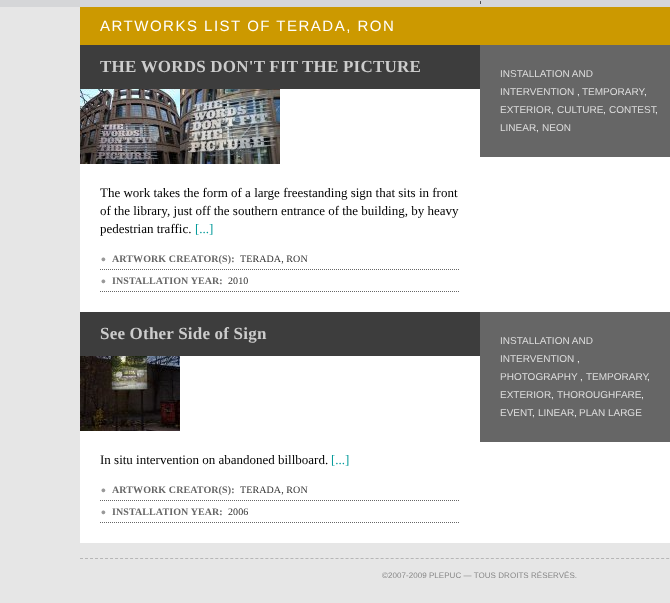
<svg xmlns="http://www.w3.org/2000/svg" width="670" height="603">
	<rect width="100%" height="100%" fill="#E6E6E6" />
	<rect x="0" y="0" width="670" height="7" fill="#D5D6D8" />
	<path d="M480.5-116V4" fill="none" stroke="#4D4D4D" stroke-dasharray="3 2.09" />
	<rect x="80" y="7" width="590" height="38" fill="#CC9900" />
	<text x="100" y="31" font-family="Liberation Sans" font-size="15" letter-spacing="1.5" fill="#FFFFFF">ARTWORKS LIST OF TERADA, RON</text>
	<rect x="80" y="89" width="590" height="454" fill="#FFFFFF" />
	<rect x="80" y="45" width="400" height="44" fill="#3D3D3D" />
	<text x="100" y="72" font-family="Liberation Serif" font-size="17" font-weight="700" letter-spacing="0.2" fill="#CCCCCC">THE WORDS DON'T FIT THE PICTURE</text>
	<image x="80" y="89" width="100" height="75" href="assets/img1.png" />
	<image x="180" y="89" width="100" height="75" href="assets/img2.png" />
	<g font-family="Liberation Serif" font-size="13" fill="#000000">
		<text x="100" y="197">The work takes the form of a large freestanding sign that sits in front</text>
		<text x="100" y="215">of the library, just off the southern entrance of the building, by heavy</text>
		<text x="100" y="233">pedestrian traffic.</text>
	</g>
	<text x="195" y="233" font-family="Liberation Serif" font-size="13" fill="#009999">[...]</text>
	<path d="M100 269.5H460" fill="none" stroke="#666666" stroke-dasharray="1 1" />
	<image x="101" y="257" width="5" height="5" href="assets/img3.png" />
	<text x="112" y="262" font-family="Liberation Serif" font-size="10" font-weight="700" letter-spacing="0.1" fill="#666666">ARTWORK CREATOR(S):</text>
	<text x="240" y="262" font-family="Liberation Serif" font-size="10" letter-spacing="0.1" fill="#333333">TERADA, RON</text>
	<path d="M100 291.5H460" fill="none" stroke="#666666" stroke-dasharray="1 1" />
	<image x="101" y="279" width="5" height="5" href="assets/img3.png" />
	<text x="112" y="284" font-family="Liberation Serif" font-size="10" font-weight="700" letter-spacing="0.1" fill="#666666">INSTALLATION YEAR:</text>
	<text x="228" y="284" font-family="Liberation Serif" font-size="10" letter-spacing="0.1" fill="#333333">2010</text>
	<rect x="480" y="45" width="190" height="112" fill="#666666" />
	<g font-family="Liberation Sans" font-size="10" fill="#DDDDDD">
		<text x="500" y="77">INSTALLATION AND</text>
		<text x="500" y="95">INTERVENTION</text>
	</g>
	<text x="577" y="95" font-family="Liberation Sans" font-size="10" fill="#FFFFFF">,</text>
	<text x="582" y="95" font-family="Liberation Sans" font-size="10" fill="#DDDDDD">TEMPORARY</text>
	<text x="644" y="95" font-family="Liberation Sans" font-size="10" fill="#FFFFFF">,</text>
	<text x="500" y="113" font-family="Liberation Sans" font-size="10" fill="#DDDDDD">EXTERIOR</text>
	<text x="551" y="113" font-family="Liberation Sans" font-size="10" fill="#FFFFFF">,</text>
	<text x="557" y="113" font-family="Liberation Sans" font-size="10" fill="#DDDDDD">CULTURE</text>
	<text x="603" y="113" font-family="Liberation Sans" font-size="10" fill="#FFFFFF">,</text>
	<text x="609" y="113" font-family="Liberation Sans" font-size="10" fill="#DDDDDD">CONTEST</text>
	<text x="655" y="113" font-family="Liberation Sans" font-size="10" fill="#FFFFFF">,</text>
	<text x="500" y="131" font-family="Liberation Sans" font-size="10" fill="#DDDDDD">LINEAR</text>
	<text x="536" y="131" font-family="Liberation Sans" font-size="10" fill="#FFFFFF">,</text>
	<text x="542" y="131" font-family="Liberation Sans" font-size="10" fill="#DDDDDD">NEON</text>
	<rect x="80" y="312" width="400" height="44" fill="#3D3D3D" />
	<text x="100" y="339" font-family="Liberation Serif" font-size="17" font-weight="700" letter-spacing="0.2" fill="#CCCCCC">See Other Side of Sign</text>
	<image x="80" y="356" width="100" height="75" href="assets/img4.png" />
	<text x="100" y="464" font-family="Liberation Serif" font-size="13" fill="#000000">In situ intervention on abandoned billboard.</text>
	<text x="331" y="464" font-family="Liberation Serif" font-size="13" fill="#009999">[...]</text>
	<path d="M100 500.5H460" fill="none" stroke="#666666" stroke-dasharray="1 1" />
	<image x="101" y="488" width="5" height="5" href="assets/img3.png" />
	<text x="112" y="493" font-family="Liberation Serif" font-size="10" font-weight="700" letter-spacing="0.1" fill="#666666">ARTWORK CREATOR(S):</text>
	<text x="240" y="493" font-family="Liberation Serif" font-size="10" letter-spacing="0.1" fill="#333333">TERADA, RON</text>
	<path d="M100 522.5H460" fill="none" stroke="#666666" stroke-dasharray="1 1" />
	<image x="101" y="510" width="5" height="5" href="assets/img3.png" />
	<text x="112" y="515" font-family="Liberation Serif" font-size="10" font-weight="700" letter-spacing="0.1" fill="#666666">INSTALLATION YEAR:</text>
	<text x="228" y="515" font-family="Liberation Serif" font-size="10" letter-spacing="0.1" fill="#333333">2006</text>
	<rect x="480" y="312" width="190" height="130" fill="#666666" />
	<g font-family="Liberation Sans" font-size="10" fill="#DDDDDD">
		<text x="500" y="344">INSTALLATION AND</text>
		<text x="500" y="362">INTERVENTION</text>
	</g>
	<text x="577" y="362" font-family="Liberation Sans" font-size="10" fill="#FFFFFF">,</text>
	<text x="500" y="380" font-family="Liberation Sans" font-size="10" fill="#DDDDDD">PHOTOGRAPHY</text>
	<text x="580" y="380" font-family="Liberation Sans" font-size="10" fill="#FFFFFF">,</text>
	<text x="586" y="380" font-family="Liberation Sans" font-size="10" fill="#DDDDDD">TEMPORARY</text>
	<text x="647" y="380" font-family="Liberation Sans" font-size="10" fill="#FFFFFF">,</text>
	<text x="500" y="398" font-family="Liberation Sans" font-size="10" fill="#DDDDDD">EXTERIOR</text>
	<text x="551" y="398" font-family="Liberation Sans" font-size="10" fill="#FFFFFF">,</text>
	<text x="557" y="398" font-family="Liberation Sans" font-size="10" fill="#DDDDDD">THOROUGHFARE</text>
	<text x="641" y="398" font-family="Liberation Sans" font-size="10" fill="#FFFFFF">,</text>
	<g font-family="Liberation Sans" font-size="10" fill="#DDDDDD">
		<text x="500" y="416">EVENT</text>
		<text x="538" y="416">LINEAR</text>
		<text x="579" y="416">PLAN LARGE</text>
	</g>
	<g font-family="Liberation Sans" font-size="10" fill="#FFFFFF">
		<text x="532" y="416">,</text>
		<text x="574" y="416">,</text>
	</g>
	<path d="M80 558.5H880" fill="none" stroke="#B6B6B6" stroke-dasharray="3 2.01" />
	<text x="382" y="578" font-family="Liberation Sans" font-size="8" letter-spacing="0.05" fill="#878787">©2007-2009 PLEPUC — TOUS DROITS RÉSERVÉS.</text>
</svg>
